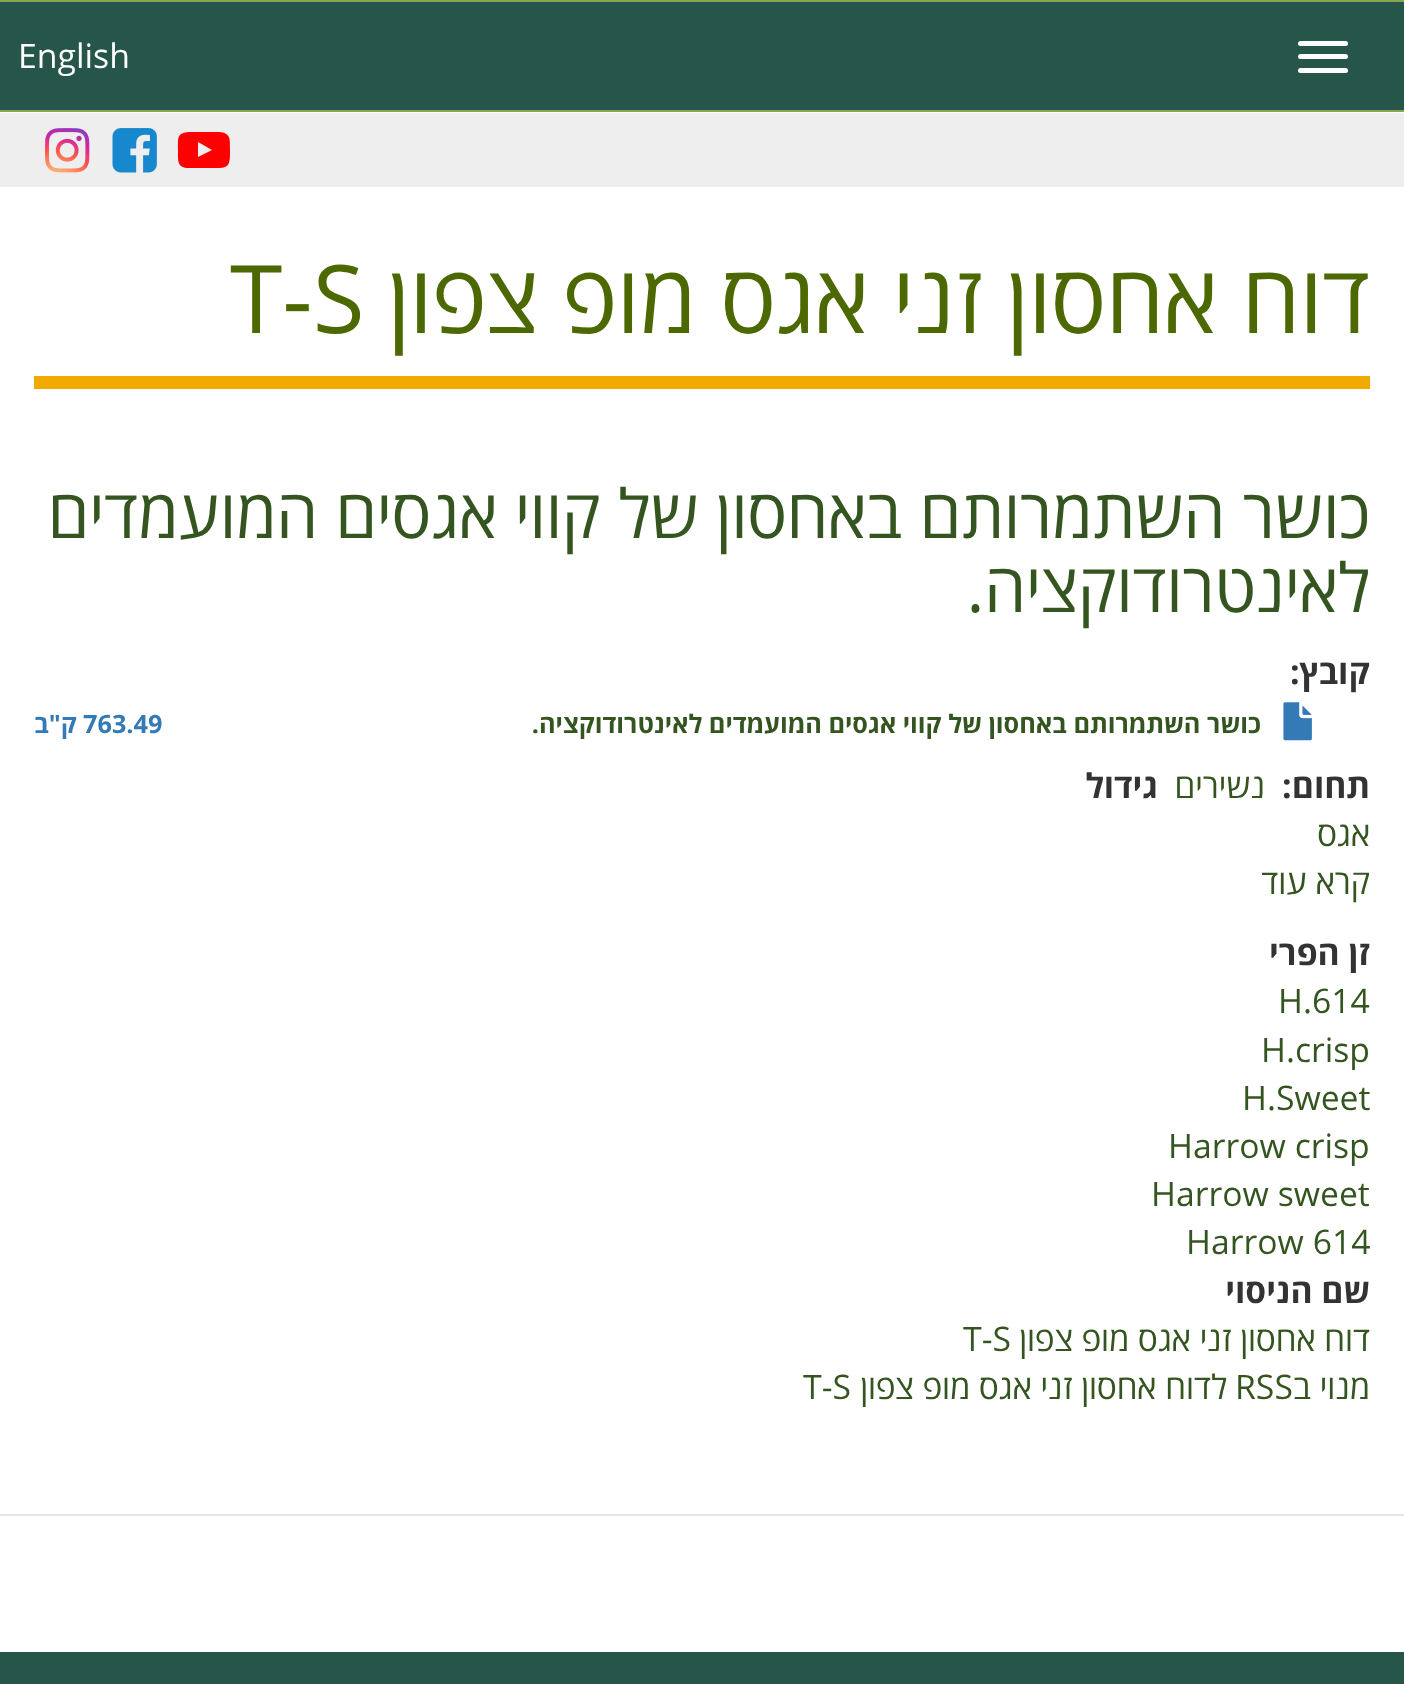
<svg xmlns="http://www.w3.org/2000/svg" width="1404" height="1684">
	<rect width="100%" height="100%" fill="#FFFFFF" />
	<rect x="0" y="2" width="1404" height="108" fill="#26564A" />
	<rect x="0" y="0" width="1404" height="2" fill="#89A54E" />
	<rect x="0" y="110" width="1404" height="2" fill="#89A54E" />
	<rect x="1298" y="41" width="50" height="5" rx="2.5" fill="#FFFFFF" />
	<rect x="1298" y="54" width="50" height="5" rx="2.5" fill="#FFFFFF" />
	<rect x="1298" y="68" width="50" height="5" rx="2.5" fill="#FFFFFF" />
	<text x="18" y="68" font-family="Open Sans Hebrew" font-size="33.75" fill="#FFFFFF">English</text>
	<rect x="0" y="113" width="1404" height="74" fill="#EEEEEE" />
	<path d="M198 157L212 150L198 142ZM204 132H219C231 133 230 139 230 150C230 163 230 168 218 168H189C177 168 178 161 178 150C178 137 177 133 189 132Z" fill="#FF0000" />
	<image x="112" y="128" width="45" height="45" href="assets/img1.png" />
	<image x="45" y="128" width="45" height="45" href="assets/img2.png" />
	<rect x="34" y="376" width="1336" height="13" fill="#F1AA00" />
	<text x="1370" y="333" font-family="Open Sans Hebrew" font-size="94.5" direction="rtl" fill="#4B6900">דוח אחסון זני אגס מופ צפון</text>
	<text x="230" y="333" font-family="Open Sans Hebrew" font-size="94.5" fill="#4B6900">T-S</text>
	<g font-family="Open Sans Hebrew" font-size="67.5" direction="rtl" fill="#345520">
		<text x="1370" y="538">כושר השתמרותם באחסון של קווי אגסים המועמדים</text>
		<text x="1370" y="612">לאינטרודוקציה.</text>
	</g>
	<text x="1370" y="684" font-family="Open Sans Hebrew" font-size="33.75" font-weight="700" direction="rtl" fill="#333333">קובץ</text>
	<text x="1290" y="684" font-family="Open Sans Hebrew" font-size="33.75" font-weight="700" fill="#333333">:</text>
	<image x="1283" y="702" width="29" height="39" href="assets/img3.png" />
	<text x="1261" y="733" font-family="Open Sans Hebrew" font-size="25.3" font-weight="700" direction="rtl" fill="#345520">כושר השתמרותם באחסון של קווי אגסים המועמדים לאינטרודוקציה.</text>
	<text x="83" y="733" font-family="Open Sans Hebrew" font-size="25.3" font-weight="700" fill="#337AB7">763.49</text>
	<text x="77" y="733" font-family="Open Sans Hebrew" font-size="25.3" font-weight="700" direction="rtl" fill="#337AB7">ק"ב</text>
	<text x="1158" y="798" font-family="Open Sans Hebrew" font-size="33.75" font-weight="700" direction="rtl" fill="#333333">גידול</text>
	<text x="1370" y="846" font-family="Open Sans Hebrew" font-size="33.75" direction="rtl" fill="#345520">אגס</text>
	<text x="1370" y="798" font-family="Open Sans Hebrew" font-size="33.75" font-weight="700" direction="rtl" fill="#333333">תחום</text>
	<text x="1282" y="798" font-family="Open Sans Hebrew" font-size="33.75" font-weight="700" fill="#333333">:</text>
	<g font-family="Open Sans Hebrew" font-size="33.75" direction="rtl" fill="#345520">
		<text x="1265" y="798">נשירים</text>
		<text x="1370" y="894">קרא עוד</text>
	</g>
	<text x="1370" y="965" font-family="Open Sans Hebrew" font-size="33.75" font-weight="700" direction="rtl" fill="#333333">זן הפרי</text>
	<g font-family="Open Sans Hebrew" font-size="33.75" fill="#345520">
		<text x="1278" y="1013">H.614</text>
		<text x="1261" y="1062">H.crisp</text>
		<text x="1242" y="1110">H.Sweet</text>
		<text x="1168" y="1158">Harrow crisp</text>
		<text x="1151" y="1206">Harrow sweet</text>
		<text x="1186" y="1254">Harrow 614</text>
	</g>
	<text x="1370" y="1303" font-family="Open Sans Hebrew" font-size="33.75" font-weight="700" direction="rtl" fill="#333333">שם הניסוי</text>
	<text x="1370" y="1351" font-family="Open Sans Hebrew" font-size="33.75" direction="rtl" fill="#345520">דוח אחסון זני אגס מופ צפון</text>
	<text x="963" y="1351" font-family="Open Sans Hebrew" font-size="33.75" fill="#345520">T-S</text>
	<text x="1370" y="1399" font-family="Open Sans Hebrew" font-size="33.75" direction="rtl" fill="#345520">מנוי ב</text>
	<text x="1235" y="1399" font-family="Open Sans Hebrew" font-size="33.75" fill="#345520">RSS</text>
	<text x="1227" y="1399" font-family="Open Sans Hebrew" font-size="33.75" direction="rtl" fill="#345520">לדוח אחסון זני אגס מופ צפון</text>
	<text x="803" y="1399" font-family="Open Sans Hebrew" font-size="33.75" fill="#345520">T-S</text>
	<rect x="0" y="1514" width="1404" height="2" fill="#E5E5E5" />
	<rect x="0" y="1652" width="1404" height="32" fill="#26564A" />
</svg>
